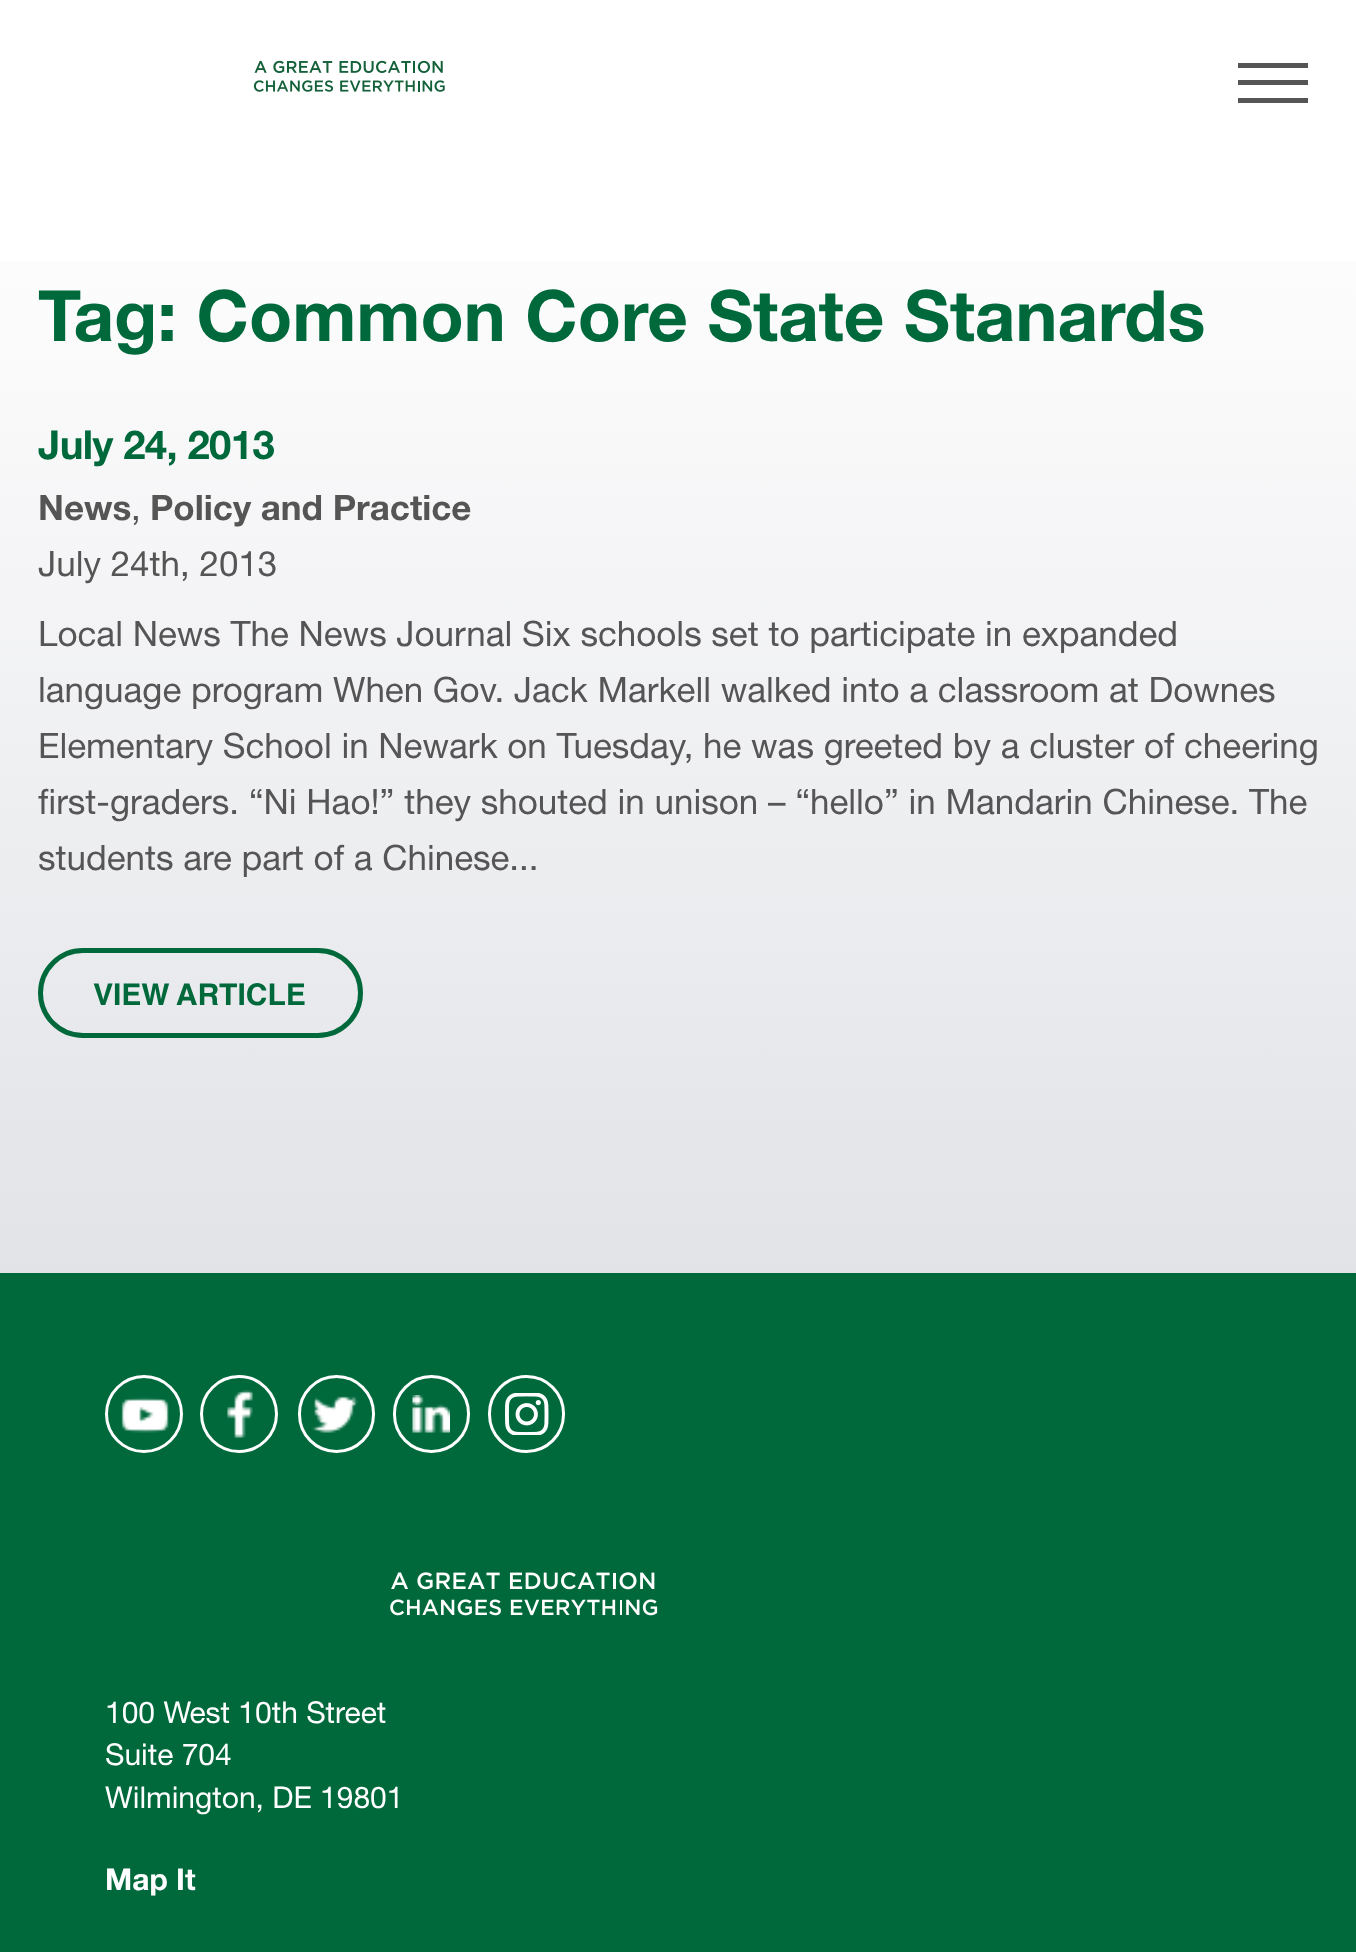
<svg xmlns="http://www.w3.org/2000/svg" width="1356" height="1952">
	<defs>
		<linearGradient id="g1" gradientUnits="userSpaceOnUse" x1="679" y1="165" x2="679" y2="1273"><stop offset="0" stop-color="#FFFFFF" /><stop offset="1" stop-color="#E2E3E7" /></linearGradient>
	</defs>
	<rect width="100%" height="100%" fill="#FFFFFF" />
	<image x="253" y="60" width="192" height="32" href="assets/img1.png" />
	<rect x="1238" y="63" width="70" height="5" fill="#555555" />
	<rect x="1238" y="80" width="70" height="5" fill="#555555" />
	<rect x="1238" y="98" width="70" height="5" fill="#555555" />
	<rect x="0" y="261" width="1356" height="1012" fill="url(#g1)" />
	<text x="38" y="341" font-family="Helvetica Neue" font-size="70.75" font-weight="700" fill="#00693C">Tag: Common Core State Stanards</text>
	<text x="38" y="459" font-family="Helvetica Neue" font-size="40" font-weight="700" letter-spacing="-0.6" fill="#00693C">July 24, 2013</text>
	<text x="38" y="520" font-family="Helvetica Neue" font-size="35" font-weight="700" fill="#555555">News</text>
	<text x="131" y="520" font-family="Helvetica Neue" font-size="35" fill="#555555">,</text>
	<text x="150" y="520" font-family="Helvetica Neue" font-size="35" font-weight="700" fill="#555555">Policy and Practice</text>
	<g font-family="Helvetica Neue" font-size="35" fill="#555555">
		<text x="38" y="576">July 24th, 2013</text>
		<text x="38" y="646">Local News The News Journal Six schools set to participate in expanded</text>
		<text x="38" y="702">language program When Gov. Jack Markell walked into a classroom at Downes</text>
		<text x="38" y="758">Elementary School in Newark on Tuesday, he was greeted by a cluster of cheering</text>
		<text x="38" y="814">first-graders. “Ni Hao!” they shouted in unison – “hello” in Mandarin Chinese. The</text>
		<text x="38" y="870">students are part of a Chinese...</text>
	</g>
	<rect x="40.5" y="950.5" width="320" height="85" rx="42.5" fill="none" stroke="#00693C" stroke-width="5" />
	<text x="93" y="1005" font-family="Helvetica" font-size="30" fill="#00693C">VIEW ARTICLE</text>
	<rect x="0" y="1273" width="1356" height="679" fill="#00693C" />
	<circle cx="144" cy="1414" r="37.5" fill="none" stroke="#FFFFFF" stroke-width="3" />
	<image x="121" y="1397" width="48" height="36" href="assets/img2.png" />
	<circle cx="239" cy="1414" r="37.5" fill="none" stroke="#FFFFFF" stroke-width="3" />
	<image x="227" y="1390" width="26" height="48" href="assets/img3.png" />
	<rect x="299.5" y="1376.5" width="74" height="75" rx="37" fill="none" stroke="#FFFFFF" stroke-width="3" />
	<image x="312" y="1396" width="46" height="37" href="assets/img4.png" />
	<rect x="394.5" y="1376.5" width="74" height="75" rx="37" fill="none" stroke="#FFFFFF" stroke-width="3" />
	<image x="412" y="1395" width="38" height="38" href="assets/img5.png" />
	<rect x="489.5" y="1376.5" width="74" height="75" rx="37" fill="none" stroke="#FFFFFF" stroke-width="3" />
	<image x="505" y="1393" width="44" height="42" href="assets/img6.png" />
	<image x="390" y="1572" width="268" height="44" href="assets/img7.png" />
	<g font-family="Helvetica Neue" font-size="30" fill="#FFFFFF">
		<text x="105" y="1723">100 West 10th Street</text>
		<text x="105" y="1765">Suite 704</text>
		<text x="105" y="1808">Wilmington, DE 19801</text>
	</g>
	<text x="105" y="1890" font-family="Helvetica Neue" font-size="30" font-weight="700" fill="#FFFFFF">Map It</text>
</svg>
